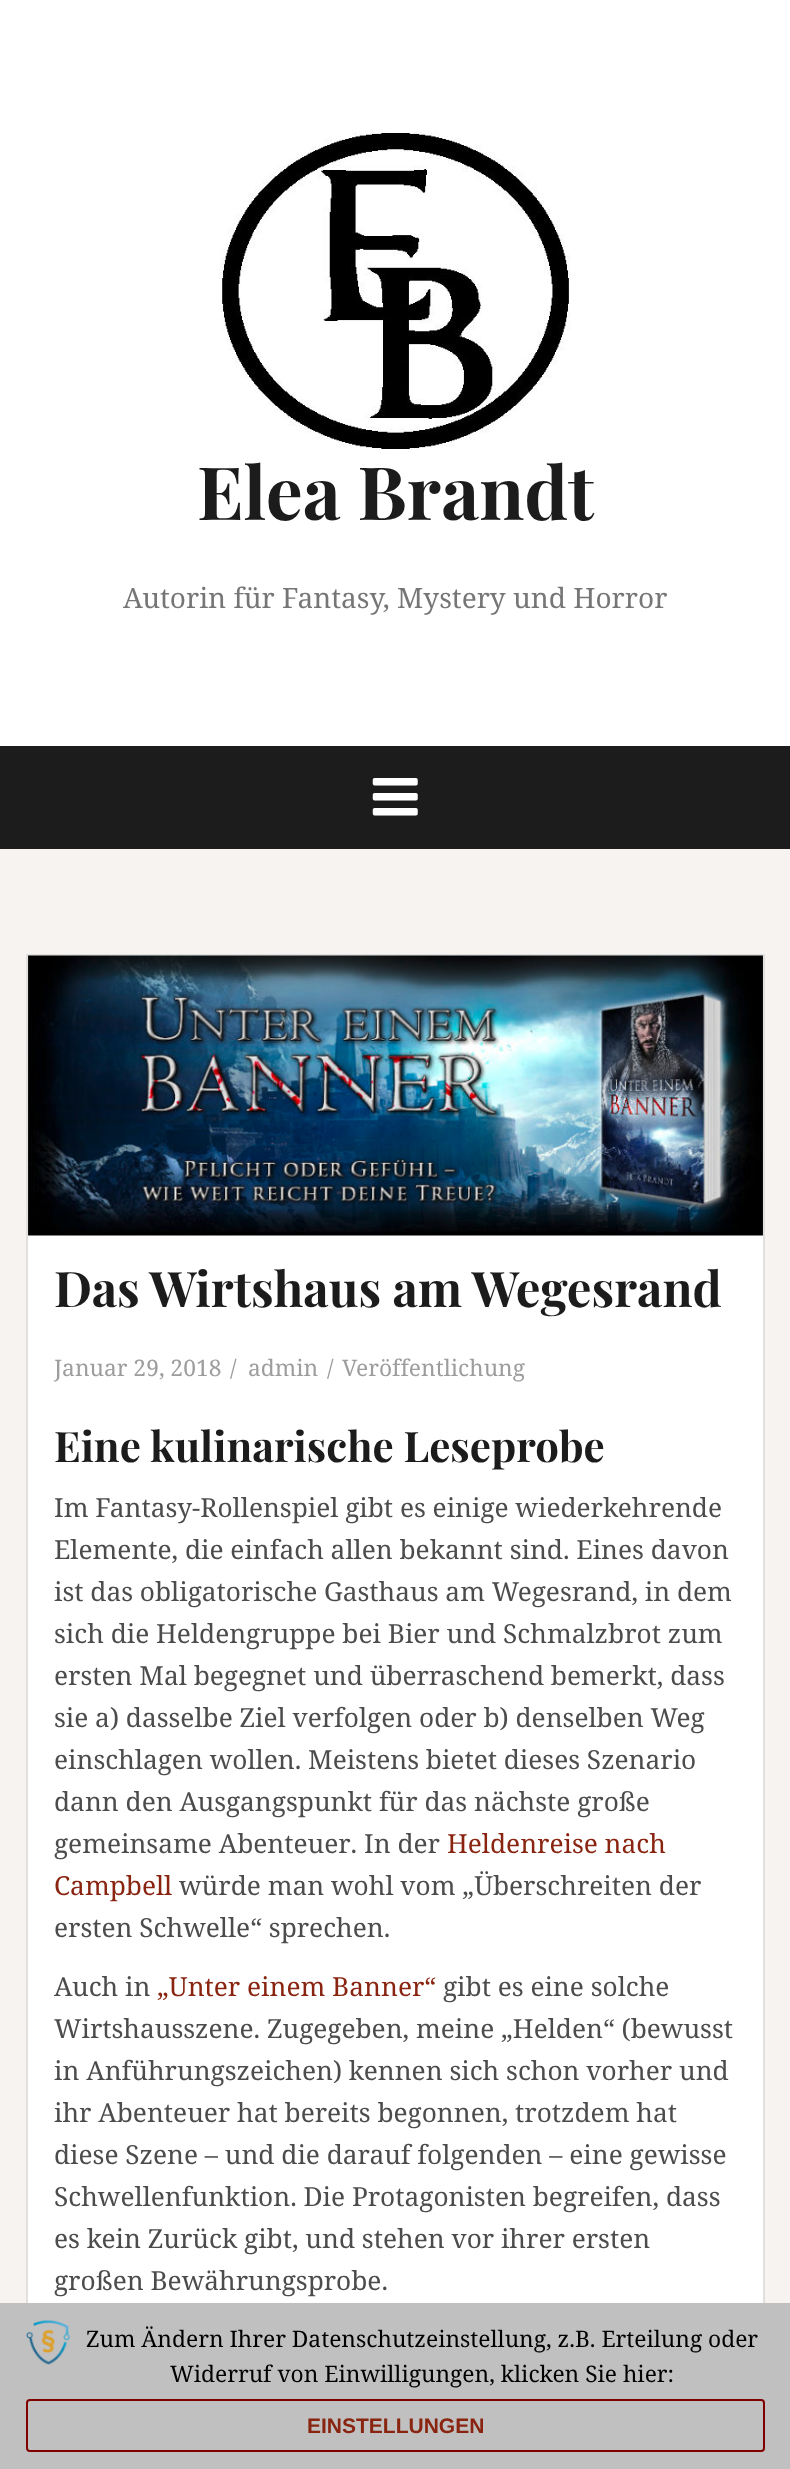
<svg xmlns="http://www.w3.org/2000/svg" width="790" height="2469">
	<rect width="100%" height="100%" fill="#F7F3F0" />
	<rect x="0" y="0" width="790" height="746" fill="#FFFFFF" />
	<image x="220" y="131" width="351" height="319" href="assets/img1.png" />
	<text x="197" y="520" font-family="Playfair Display" font-size="73.5" font-weight="700" fill="#1C1C1C">Elea Brandt</text>
	<text x="123" y="608" font-family="Noto Serif" font-size="28" fill="#767676">Autorin für Fantasy, Mystery und Horror</text>
	<rect x="0" y="746" width="790" height="103" fill="#1C1C1C" />
	<image x="372" y="778" width="46" height="38" href="assets/img2.png" />
	<rect x="28" y="1235" width="735" height="1068" fill="#FFFFFF" />
	<rect x="27" y="955" width="737" height="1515" fill="none" stroke="#E0E0E0" stroke-width="2" />
	<image x="28" y="955" width="735" height="281" href="assets/img3.png" />
	<text x="54" y="1307" font-family="Playfair Display" font-size="49" font-weight="700" fill="#1C1C1C">Das Wirtshaus am Wegesrand</text>
	<g font-family="Noto Serif" font-size="22.75" fill="#9D9D9D">
		<text x="54" y="1376">Januar 29, 2018</text>
		<text x="230" y="1376">/</text>
		<text x="248" y="1376">admin</text>
		<text x="327" y="1376">/</text>
		<text x="342" y="1376">Veröffentlichung</text>
	</g>
	<text x="54" y="1462" font-family="Playfair Display" font-size="42" font-weight="700" fill="#1C1C1C">Eine kulinarische Leseprobe</text>
	<g font-family="Noto Serif" font-size="26.25" fill="#4C4C4C">
		<text x="54" y="1517">Im Fantasy-Rollenspiel gibt es einige wiederkehrende</text>
		<text x="54" y="1559">Elemente, die einfach allen bekannt sind. Eines davon</text>
		<text x="54" y="1601">ist das obligatorische Gasthaus am Wegesrand, in dem</text>
		<text x="54" y="1643">sich die Heldengruppe bei Bier und Schmalzbrot zum</text>
		<text x="54" y="1685">ersten Mal begegnet und überraschend bemerkt, dass</text>
		<text x="54" y="1727">sie a) dasselbe Ziel verfolgen oder b) denselben Weg</text>
		<text x="54" y="1769">einschlagen wollen. Meistens bietet dieses Szenario</text>
		<text x="54" y="1811">dann den Ausgangspunkt für das nächste große</text>
		<text x="54" y="1853">gemeinsame Abenteuer. In der</text>
	</g>
	<g font-family="Noto Serif" font-size="26.25" fill="#892410">
		<text x="447" y="1853">Heldenreise nach</text>
		<text x="54" y="1895">Campbell</text>
	</g>
	<g font-family="Noto Serif" font-size="26.25" fill="#4C4C4C">
		<text x="179" y="1895">würde man wohl vom „Überschreiten der</text>
		<text x="54" y="1937">ersten Schwelle“ sprechen.</text>
		<text x="54" y="1996">Auch in</text>
	</g>
	<text x="157" y="1996" font-family="Noto Serif" font-size="26.25" fill="#892410">„Unter einem Banner“</text>
	<g font-family="Noto Serif" font-size="26.25" fill="#4C4C4C">
		<text x="443" y="1996">gibt es eine solche</text>
		<text x="54" y="2038">Wirtshausszene. Zugegeben, meine „Helden“ (bewusst</text>
		<text x="54" y="2080">in Anführungszeichen) kennen sich schon vorher und</text>
		<text x="54" y="2122">ihr Abenteuer hat bereits begonnen, trotzdem hat</text>
		<text x="54" y="2164">diese Szene – und die darauf folgenden – eine gewisse</text>
		<text x="54" y="2206">Schwellenfunktion. Die Protagonisten begreifen, dass</text>
		<text x="54" y="2248">es kein Zurück gibt, und stehen vor ihrer ersten</text>
		<text x="54" y="2290">großen Bewährungsprobe.</text>
	</g>
	<rect x="0" y="2303" width="790" height="166" fill="#C0C0C0" />
	<image x="26" y="2320" width="44" height="45" href="assets/img4.png" />
	<g font-family="Noto Serif" font-size="22.75" fill="#000000">
		<text x="86" y="2347">Zum Ändern Ihrer Datenschutzeinstellung, z.B. Erteilung oder</text>
		<text x="170" y="2382">Widerruf von Einwilligungen, klicken Sie hier:</text>
	</g>
	<rect x="27" y="2400" width="737" height="51" rx="3" fill="none" stroke="#800000" stroke-width="2" />
	<text x="307" y="2433" font-family="Liberation Sans" font-size="21" font-weight="700" fill="#892410">EINSTELLUNGEN</text>
</svg>
